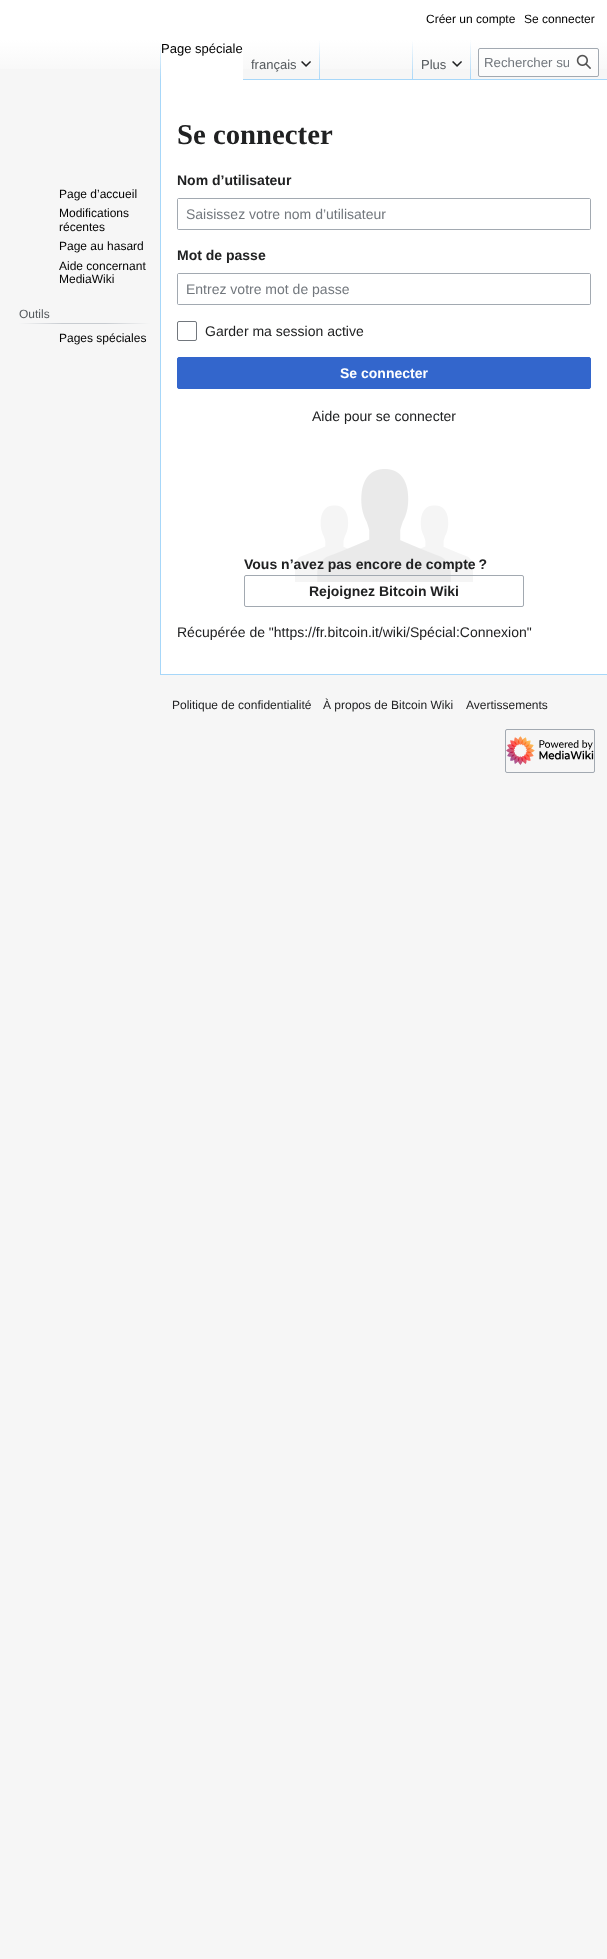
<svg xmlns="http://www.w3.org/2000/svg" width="607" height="1959">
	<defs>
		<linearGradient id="g1" gradientUnits="userSpaceOnUse" x1="304" y1="0" x2="304" y2="80"><stop offset="0.5" stop-color="#FFFFFF" /><stop offset="1" stop-color="#F6F6F6" /></linearGradient>
		<linearGradient id="g2" gradientUnits="userSpaceOnUse" x1="161" y1="40" x2="161" y2="80"><stop offset="0" stop-color="#A7D7F9" stop-opacity="0" /><stop offset="1" stop-color="#A7D7F9" /></linearGradient>
		<linearGradient id="g3" gradientUnits="userSpaceOnUse" x1="320" y1="40" x2="320" y2="80"><stop offset="0" stop-color="#A7D7F9" stop-opacity="0" /><stop offset="1" stop-color="#A7D7F9" /></linearGradient>
		<linearGradient id="g4" gradientUnits="userSpaceOnUse" x1="413" y1="40" x2="413" y2="80"><stop offset="0" stop-color="#A7D7F9" stop-opacity="0" /><stop offset="1" stop-color="#A7D7F9" /></linearGradient>
		<linearGradient id="g5" gradientUnits="userSpaceOnUse" x1="471" y1="40" x2="471" y2="80"><stop offset="0" stop-color="#A7D7F9" stop-opacity="0" /><stop offset="1" stop-color="#A7D7F9" /></linearGradient>
		<clipPath id="clip1"><rect x="484" y="55" width="85" height="15" /></clipPath>
		<linearGradient id="g6" gradientUnits="userSpaceOnUse" x1="19" y1="324" x2="150" y2="324"><stop offset="0" stop-color="#F6F6F6" /><stop offset="0.33" stop-color="#C8CCD1" /><stop offset="0.66" stop-color="#C8CCD1" /><stop offset="1" stop-color="#F6F6F6" /></linearGradient>
	</defs>
	<rect width="100%" height="100%" fill="#F6F6F6" />
	<rect x="0" y="0" width="607" height="69" fill="url(#g1)" />
	<g font-family="Liberation Sans" font-size="12" fill="#000000">
		<text x="426" y="23">Créer un compte</text>
		<text x="524" y="23">Se connecter</text>
	</g>
	<rect x="160" y="674" width="447" height="1" fill="#A7D7F9" />
	<rect x="160" y="79" width="1" height="596" fill="#A7D7F9" />
	<rect x="160" y="40" width="1" height="40" fill="url(#g2)" />
	<rect x="161" y="51" width="82" height="29" fill="#FFFFFF" />
	<text x="161" y="53" font-family="Liberation Sans" font-size="13" fill="#000000">Page spéciale</text>
	<rect x="243" y="79" width="364" height="1" fill="#A7D7F9" />
	<rect x="319" y="40" width="1" height="40" fill="url(#g3)" />
	<text x="251" y="69" font-family="Liberation Sans" font-size="13" fill="#54595D">français</text>
	<image x="301" y="61" width="10" height="6" href="assets/img1.png" />
	<rect x="412" y="40" width="1" height="40" fill="url(#g4)" />
	<rect x="470" y="40" width="1" height="40" fill="url(#g5)" />
	<text x="421" y="69" font-family="Liberation Sans" font-size="13" fill="#54595D">Plus</text>
	<image x="452" y="61" width="10" height="6" href="assets/img1.png" />
	<rect x="478.5" y="48.5" width="120" height="28" rx="1.5" fill="#FFFFFF" fill-opacity="0.5" stroke="#A2A9B1" />
	<g clip-path="url(#clip1)">
		<text x="484" y="67" font-family="Liberation Sans" font-size="13.25" fill="#72777D">Rechercher su</text>
	</g>
	<image x="576" y="54" width="15" height="15" href="assets/img2.png" />
	<g font-family="Liberation Sans" font-size="12" fill="#000000">
		<text x="59" y="198">Page d’accueil</text>
		<text x="59" y="217">Modifications</text>
		<text x="59" y="231">récentes</text>
		<text x="59" y="250">Page au hasard</text>
		<text x="59" y="270">Aide concernant</text>
		<text x="59" y="283">MediaWiki</text>
	</g>
	<rect x="19" y="323" width="131" height="1" fill="url(#g6)" />
	<text x="19" y="318" font-family="Liberation Sans" font-size="12" fill="#54595D">Outils</text>
	<text x="59" y="342" font-family="Liberation Sans" font-size="12" fill="#000000">Pages spéciales</text>
	<rect x="161" y="80" width="446" height="594" fill="#FFFFFF" />
	<text x="177" y="144" font-family="Liberation Serif" font-size="28.75" font-weight="700" fill="#202122">Se connecter</text>
	<text x="177" y="185" font-family="Liberation Sans" font-size="14" font-weight="700" fill="#202122">Nom d’utilisateur</text>
	<path d="M179 198C178 198 177 199 177 200V228C177 229 178 230 179 230H589C590 230 591 229 591 228V200C591 199 590 198 589 198ZM178 199V229H590V199Z" fill="#A2A9B1" fill-rule="evenodd" />
	<text x="186" y="219" font-family="Liberation Sans" font-size="14" fill="#72777D">Saisissez votre nom d’utilisateur</text>
	<text x="177" y="260" font-family="Liberation Sans" font-size="14" font-weight="700" fill="#202122">Mot de passe</text>
	<path d="M179 273C178 273 177 274 177 275V303C177 304 178 305 179 305H589C590 305 591 304 591 303V275C591 274 590 273 589 273ZM178 274V304H590V274Z" fill="#A2A9B1" fill-rule="evenodd" />
	<text x="186" y="294" font-family="Liberation Sans" font-size="14" fill="#72777D">Entrez votre mot de passe</text>
	<rect x="177.5" y="321.5" width="19" height="19" rx="1.5" fill="none" stroke="#72777D" />
	<text x="205" y="336" font-family="Liberation Sans" font-size="14" fill="#202122">Garder ma session active</text>
	<rect x="177.5" y="357.5" width="413" height="31" rx="1.5" fill="#3366CC" stroke="#3366CC" />
	<text x="340" y="378" font-family="Liberation Sans" font-size="14" font-weight="700" fill="#FFFFFF">Se connecter</text>
	<text x="312" y="421" font-family="Liberation Sans" font-size="14" fill="#202122">Aide pour se connecter</text>
	<image x="295" y="469" width="178" height="113" href="assets/img3.png" />
	<text x="244" y="569" font-family="Liberation Sans" font-size="14" font-weight="700" fill="#202122">Vous n’avez pas encore de compte ?</text>
	<rect x="244.5" y="575.5" width="279" height="31" rx="1.5" fill="none" stroke="#A2A9B1" />
	<text x="309" y="596" font-family="Liberation Sans" font-size="14" font-weight="700" fill="#202122">Rejoignez Bitcoin Wiki</text>
	<text x="177" y="637" font-family="Liberation Sans" font-size="14" fill="#202122">Récupérée de "https://fr.bitcoin.it/wiki/Spécial:Connexion"</text>
	<g font-family="Liberation Sans" font-size="12" fill="#202122">
		<text x="172" y="709">Politique de confidentialité</text>
		<text x="323" y="709">À propos de Bitcoin Wiki</text>
		<text x="466" y="709">Avertissements</text>
	</g>
	<rect x="505.5" y="729.5" width="89" height="43" rx="1.5" fill="none" stroke="#A2A9B1" />
	<image x="506" y="736" width="88" height="29" href="assets/img4.png" />
</svg>
